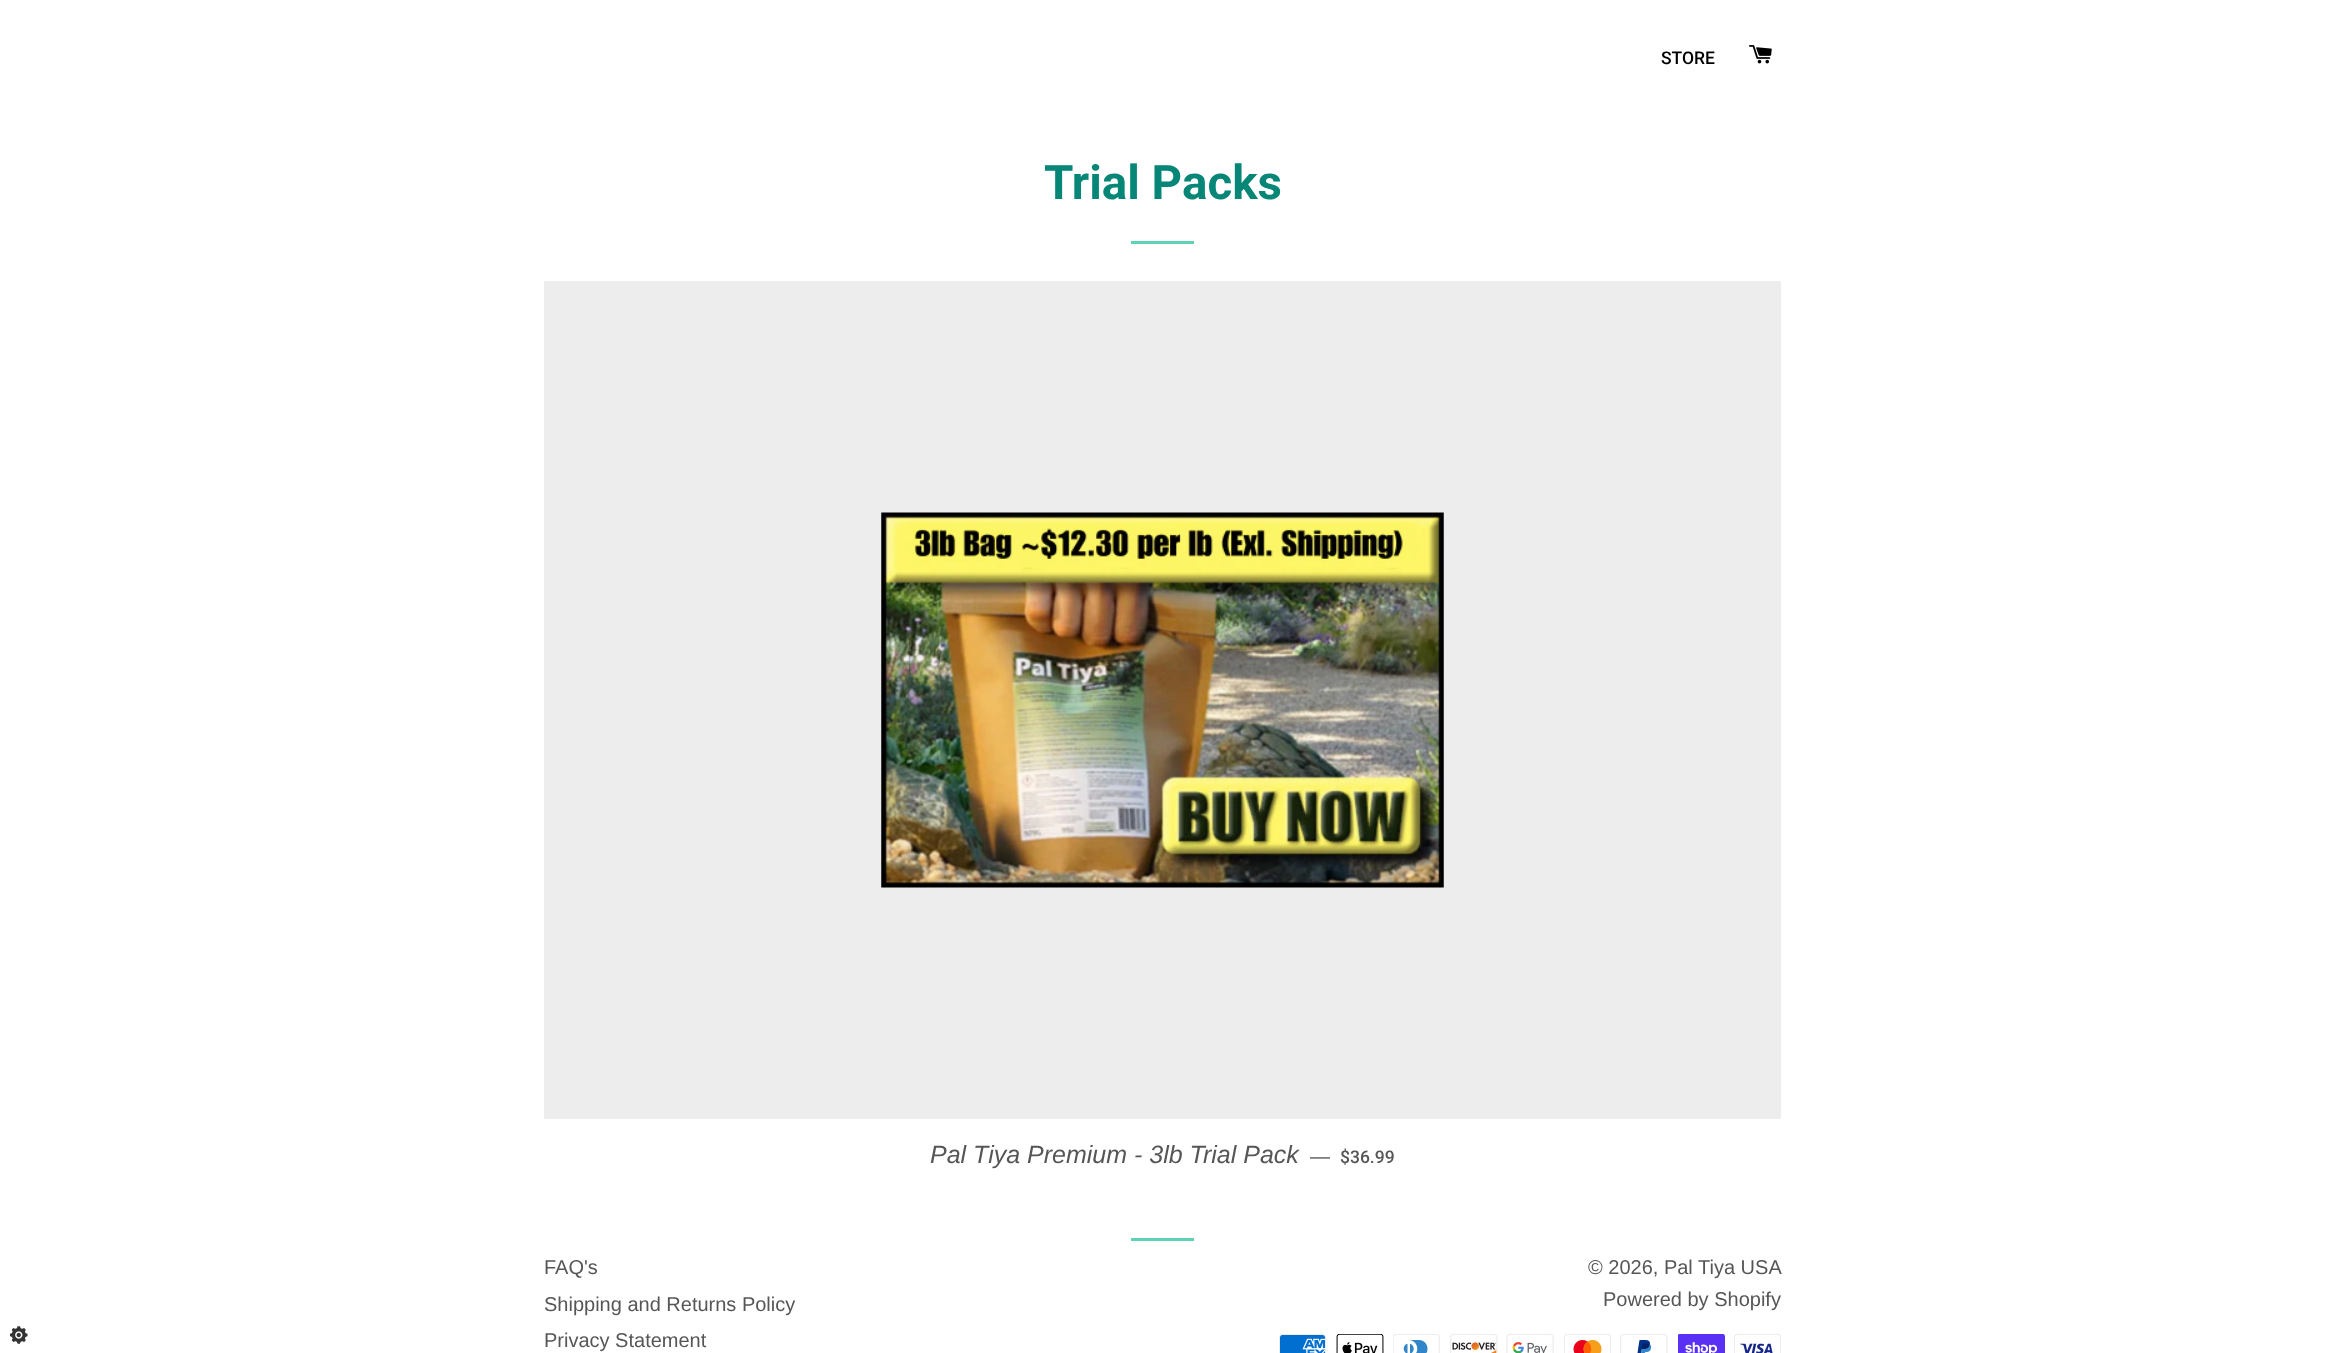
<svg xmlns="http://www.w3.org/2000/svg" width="2325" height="1353">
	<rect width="100%" height="100%" fill="#FFFFFF" />
	<text x="1661" y="64" font-family="Roboto" font-size="17.5" font-weight="500" fill="#000000">STORE</text>
	<image x="1749" y="45" width="23" height="19" href="assets/img1.png" />
	<image x="10" y="1326" width="18" height="18" href="assets/img2.png" />
	<text x="1044" y="199" font-family="Roboto" font-size="47.5" font-weight="700" fill="#058677">Trial Packs</text>
	<rect x="1131" y="241" width="63" height="3" fill="#5DD2B4" />
	<rect x="544" y="281" width="1237" height="838" fill="#EDEDED" />
	<image x="881" y="512" width="563" height="376" href="assets/img3.png" />
	<text x="930" y="1163" font-family="Liberation Sans" font-size="25" font-style="italic" fill="#565656">Pal Tiya Premium - 3lb Trial Pack</text>
	<text x="1310" y="1163" font-family="Liberation Sans" font-size="20" fill="#565656">—</text>
	<text x="1340" y="1163" font-family="Roboto" font-size="17.5" font-weight="500" fill="#565656">$36.99</text>
	<rect x="1131" y="1238" width="63" height="3" fill="#5DD2B4" />
	<g font-family="Liberation Sans" font-size="20" fill="#565656">
		<text x="544" y="1274">FAQ's</text>
		<text x="544" y="1311">Shipping and Returns Policy</text>
		<text x="544" y="1347">Privacy Statement</text>
		<text x="1588" y="1274">© 2026, Pal Tiya USA</text>
		<text x="1603" y="1306">Powered by Shopify</text>
	</g>
	<image x="1279" y="1334" width="47" height="19" href="assets/img4.png" />
	<image x="1336" y="1334" width="48" height="19" href="assets/img5.png" />
	<image x="1393" y="1334" width="47" height="19" href="assets/img6.png" />
	<image x="1450" y="1334" width="48" height="19" href="assets/img7.png" />
	<image x="1506" y="1334" width="48" height="19" href="assets/img8.png" />
	<image x="1564" y="1334" width="47" height="19" href="assets/img9.png" />
	<image x="1620" y="1334" width="48" height="19" href="assets/img10.png" />
	<image x="1678" y="1334" width="47" height="19" href="assets/img11.png" />
	<image x="1734" y="1334" width="47" height="19" href="assets/img12.png" />
</svg>
